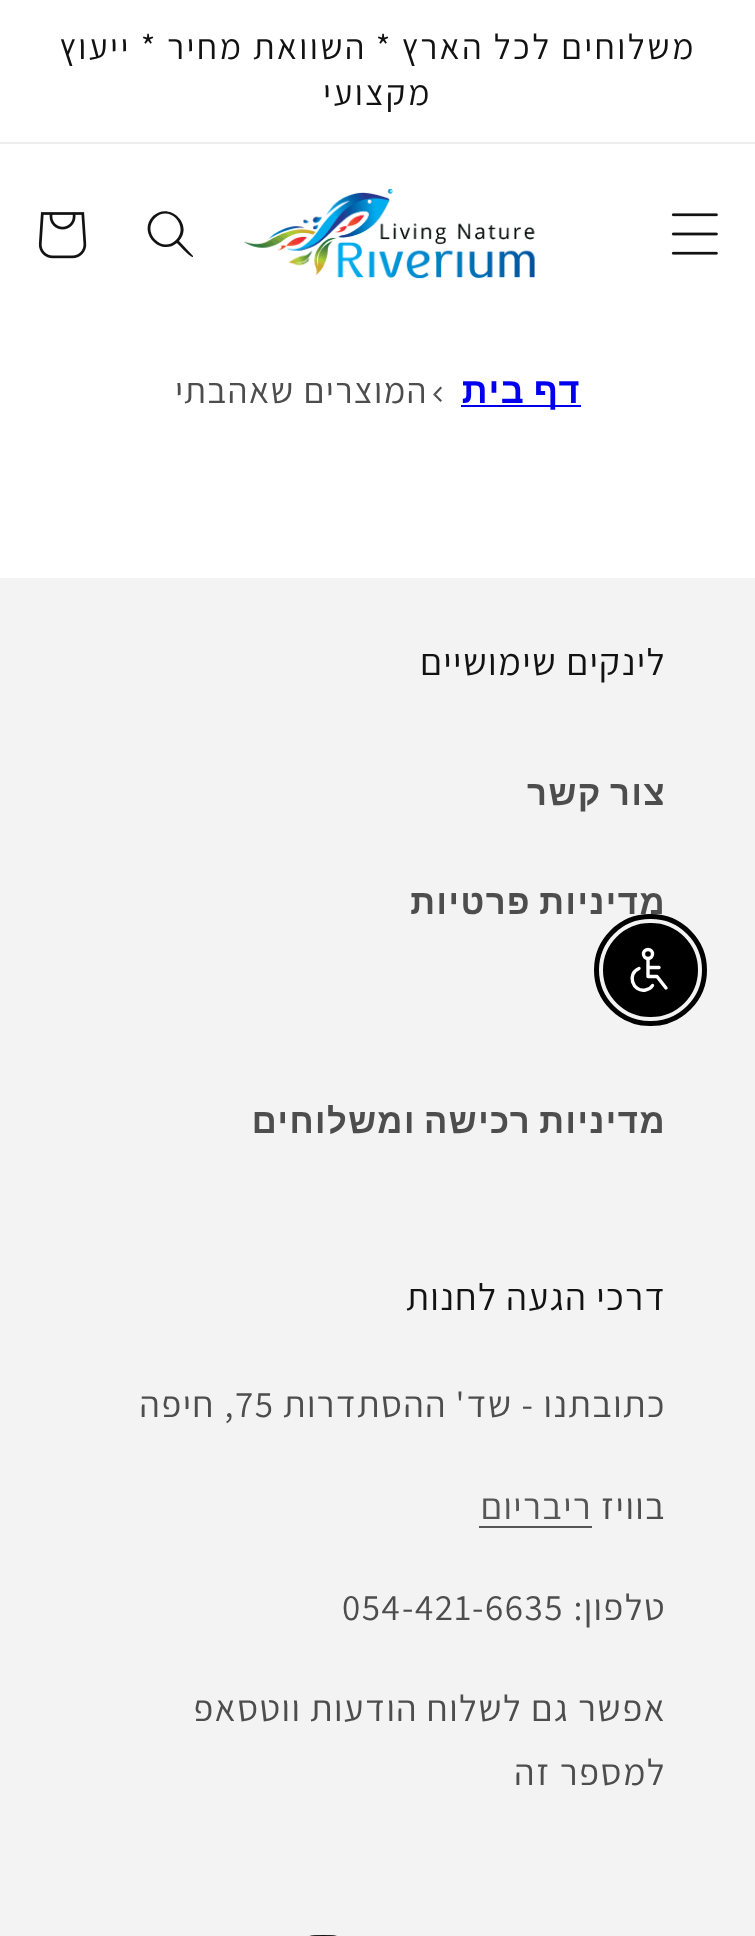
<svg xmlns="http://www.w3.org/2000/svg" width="755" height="1936">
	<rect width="100%" height="100%" fill="#FFFFFF" />
	<rect x="0" y="142" width="755" height="2" fill="#ECECEC" />
	<text x="696" y="59" font-family="Assistant" font-size="35.5" font-weight="200" letter-spacing="2.5" direction="rtl" fill="#121212">משלוחים לכל הארץ</text>
	<text x="393" y="59" font-family="Assistant" font-size="35.5" letter-spacing="2.5" direction="rtl" fill="#121212">*</text>
	<text x="367" y="59" font-family="Assistant" font-size="35.5" font-weight="200" letter-spacing="2.5" direction="rtl" fill="#121212">השוואת מחיר</text>
	<text x="158" y="59" font-family="Assistant" font-size="35.5" letter-spacing="2.5" direction="rtl" fill="#121212">*</text>
	<g font-family="Assistant" font-size="35.5" font-weight="200" letter-spacing="2.5" direction="rtl" fill="#121212">
		<text x="131" y="59">ייעוץ</text>
		<text x="432" y="105">מקצועי</text>
	</g>
	<image x="671" y="213" width="47" height="42" href="assets/img1.png" />
	<image x="243" y="189" width="292" height="90" href="assets/img2.png" />
	<path d="M176 240C162 254 141 232 155 218C169 204 190 226 176 240ZM177 243C160 257 137 232 153 216C169 201 194 224 179 241L193 256V257C191 258 179 245 177 243Z" fill="#121212" fill-rule="evenodd" />
	<image x="38" y="212" width="49" height="47" href="assets/img3.png" />
	<rect x="461" y="405" width="120" height="2" fill="#0000EE" />
	<text x="581" y="403" word-spacing="-3" font-family="Liberation Sans" font-size="36" font-weight="700" letter-spacing="1.5" direction="rtl" fill="#0000EE">דף בית</text>
	<path d="M440.5 402L433 394.5H436L442 400.5Z" fill="#4D4D4D" />
	<path d="M433 394.5L440.5 386.5L442 388L436 394.5Z" fill="#121212" fill-opacity="0.75" />
	<text x="428" y="403" font-family="Assistant" font-size="36" font-weight="200" letter-spacing="1.5" direction="rtl" fill="#4D4D4D">המוצרים שאהבתי</text>
	<rect x="0" y="578" width="755" height="1358" fill="#F3F3F3" />
	<text x="666" y="675" font-family="Assistant" font-size="37.75" font-weight="200" letter-spacing="1.4" direction="rtl" fill="#121212">לינקים שימושיים</text>
	<g font-family="Liberation Sans" font-size="34.6" font-weight="700" letter-spacing="1.5" direction="rtl" fill="#4D4D4D">
		<text x="666" y="805" word-spacing="-3">צור קשר</text>
		<text x="666" y="914" word-spacing="-3">מדיניות פרטיות</text>
		<text x="666" y="1133" word-spacing="-3">מדיניות רכישה ומשלוחים</text>
	</g>
	<text x="666" y="1310" font-family="Assistant" font-size="37.75" font-weight="200" letter-spacing="1.4" direction="rtl" fill="#121212">דרכי הגעה לחנות</text>
	<text x="666" y="1417" font-family="Assistant" font-size="37.1" font-weight="200" letter-spacing="1.5" direction="rtl" fill="#4D4D4D">כתובתנו - שד</text>
	<text x="466" y="1417" font-family="Assistant" font-size="37.1" letter-spacing="1.5" direction="rtl" fill="#4D4D4D">'</text>
	<text x="447" y="1417" font-family="Assistant" font-size="37.1" font-weight="200" letter-spacing="1.5" direction="rtl" fill="#4D4D4D">ההסתדרות</text>
	<text x="235" y="1417" font-family="Assistant" font-size="37.1" letter-spacing="1.5" fill="#4D4D4D">75</text>
	<text x="235" y="1417" font-family="Assistant" font-size="37.1" letter-spacing="1.5" direction="rtl" fill="#4D4D4D">,</text>
	<g font-family="Assistant" font-size="37.1" font-weight="200" letter-spacing="1.5" direction="rtl" fill="#4D4D4D">
		<text x="215" y="1417">חיפה</text>
		<text x="666" y="1519">בוויז</text>
	</g>
	<text x="592" y="1519" font-family="Assistant" font-size="37.1" font-weight="200" letter-spacing="1.5" direction="rtl" fill="#565656">ריבריום</text>
	<rect x="479" y="1526" width="113" height="2" fill="#565656" />
	<text x="666" y="1620" font-family="Assistant" font-size="37.1" font-weight="200" letter-spacing="1.5" direction="rtl" fill="#4D4D4D">טלפון</text>
	<text x="584" y="1620" font-family="Assistant" font-size="37.1" letter-spacing="1.5" direction="rtl" fill="#4D4D4D">:</text>
	<text x="485" y="1620" font-family="Assistant" font-size="37.1" letter-spacing="1.5" fill="#4D4D4D">6635</text>
	<text x="472" y="1620" font-family="Assistant" font-size="37.1" font-weight="200" letter-spacing="1.5" fill="#4D4D4D">-</text>
	<text x="415" y="1620" font-family="Assistant" font-size="37.1" letter-spacing="1.5" fill="#4D4D4D">421</text>
	<text x="402" y="1620" font-family="Assistant" font-size="37.1" font-weight="200" letter-spacing="1.5" fill="#4D4D4D">-</text>
	<text x="342" y="1620" font-family="Assistant" font-size="37.1" letter-spacing="1.5" fill="#4D4D4D">054</text>
	<g font-family="Assistant" font-size="37.1" font-weight="200" letter-spacing="1.5" direction="rtl" fill="#4D4D4D">
		<text x="666" y="1721">אפשר גם לשלוח הודעות ווטסאפ</text>
		<text x="666" y="1785">למספר זה</text>
	</g>
	<image x="309" y="1935" width="28" height="1" href="assets/img4.png" />
	<rect x="596.5" y="916.5" width="108" height="107" rx="53.5" fill="none" stroke="#000000" stroke-width="5" />
	<rect x="604" y="924" width="93" height="92" rx="46" fill="#000000" stroke="#000000" stroke-width="2" />
	<circle cx="648" cy="954" r="4.5" fill="none" stroke="#FFFFFF" stroke-width="3.4" />
	<path d="M648 958.5V976.5H657L666 988M648 967.5H659M639 968.5C626.5 973.5 632.5 992.5 645.5 990C648 989.5 651 988 652.5 985.5" fill="none" stroke="#FFFFFF" stroke-width="3.4" stroke-linecap="round" stroke-linejoin="round" />
</svg>
